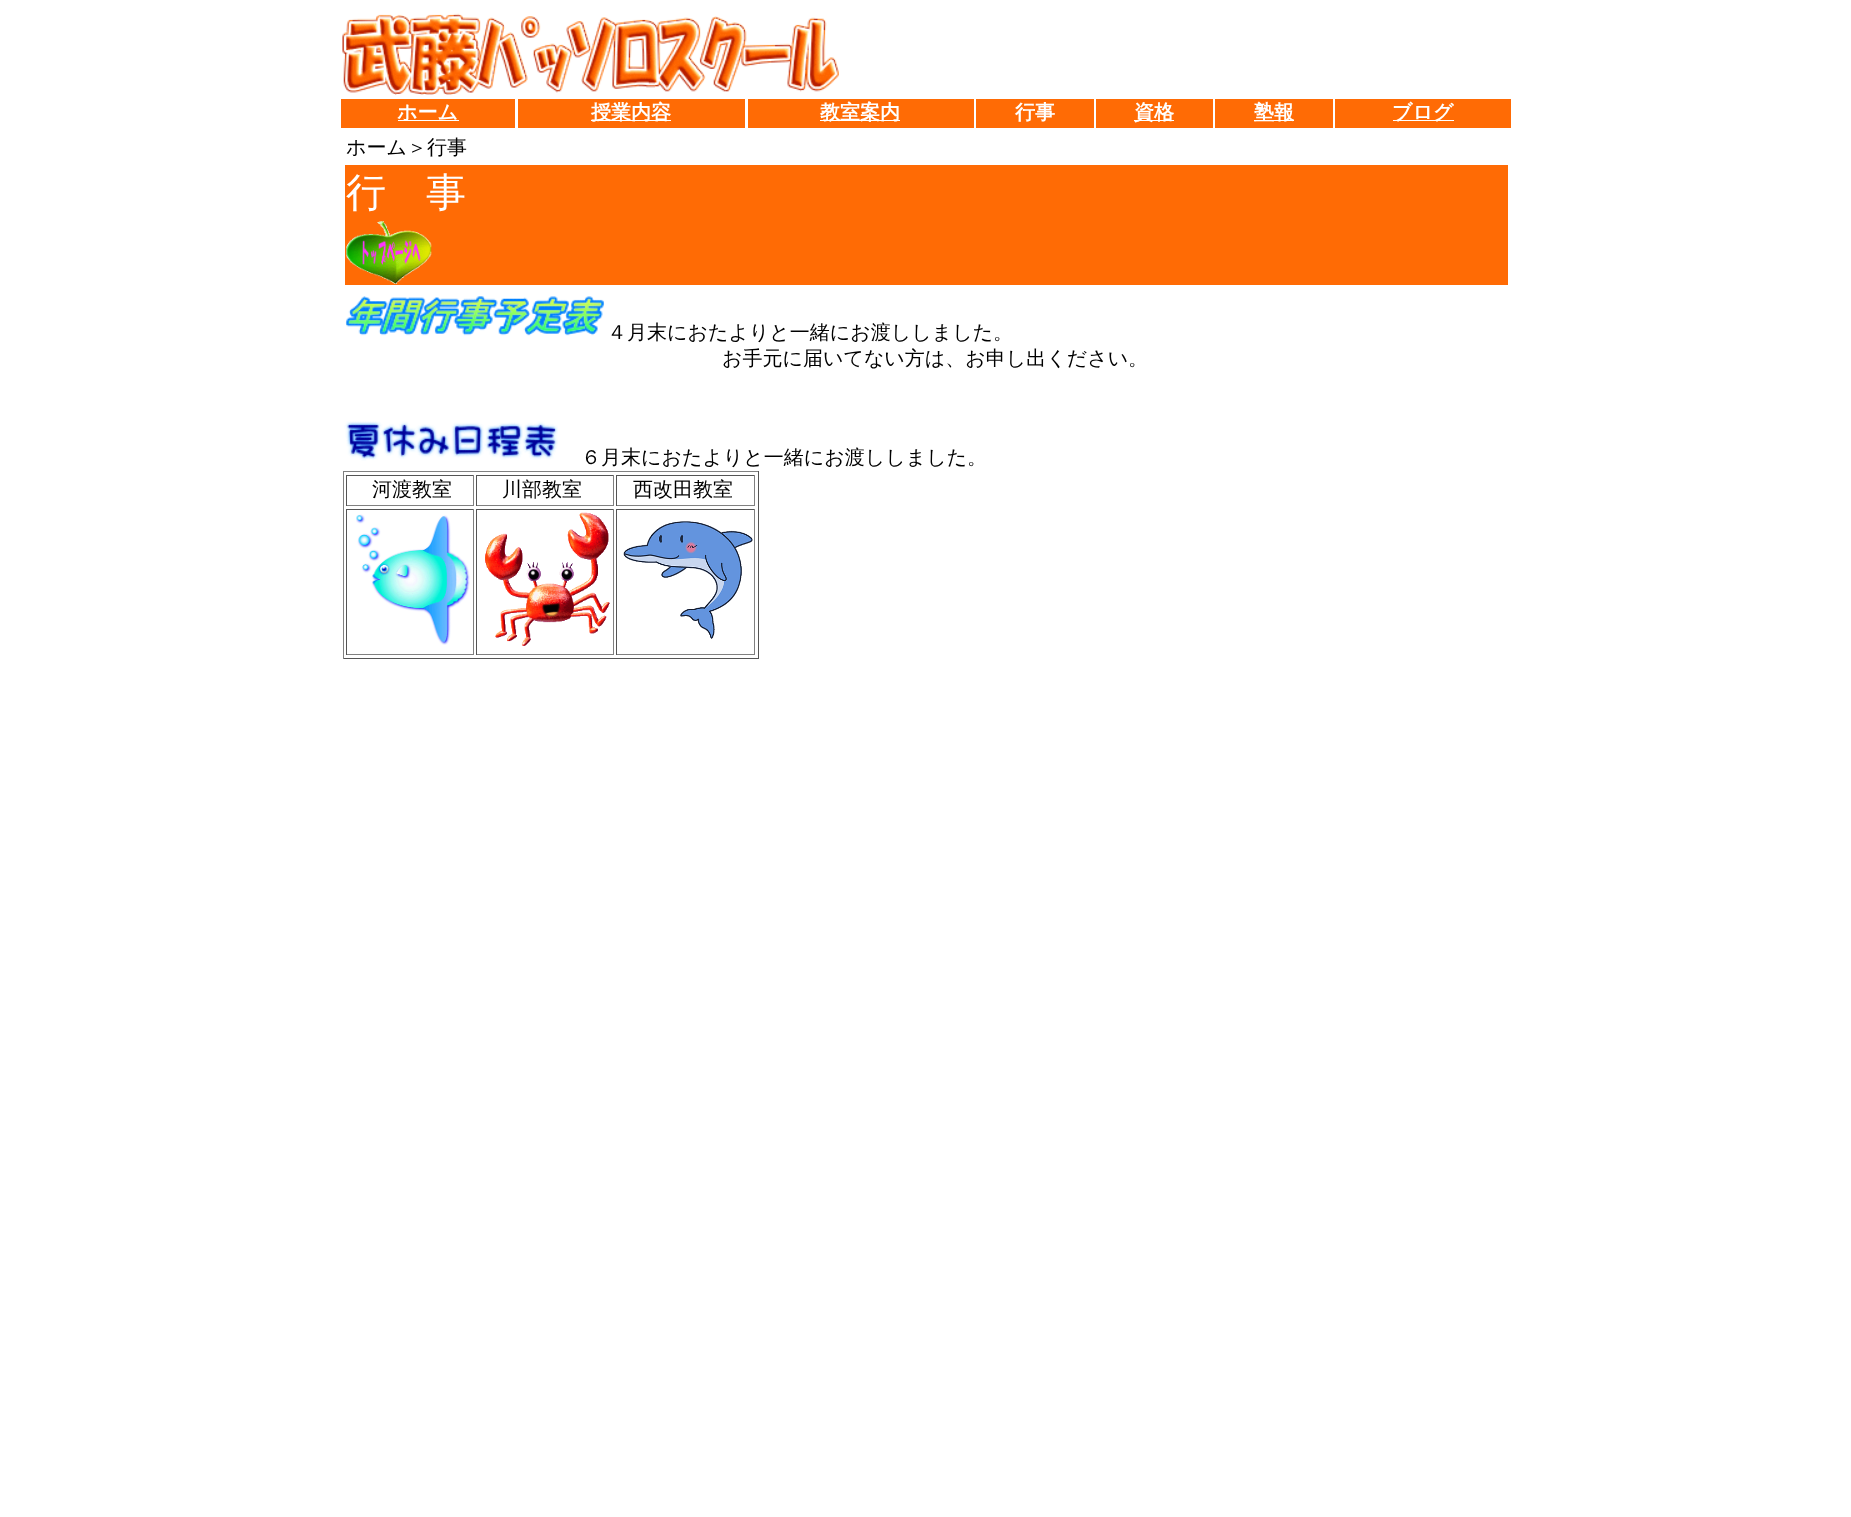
<svg xmlns="http://www.w3.org/2000/svg" width="1851" height="1517">
	<rect width="100%" height="100%" fill="#FFFFFF" />
	<image x="342" y="13" width="497" height="82" href="assets/img1.png" />
	<rect x="341" y="99" width="174" height="29" fill="#FF6B05" />
	<rect x="398" y="120" width="61" height="1" fill="#FFFFFF" />
	<text x="397" y="119" font-family="WenQuanYi Zen Hei" font-size="20" font-weight="700" fill="#FFFFFF">ホーム</text>
	<rect x="518" y="99" width="227" height="29" fill="#FF6B05" />
	<rect x="591" y="120" width="80" height="1" fill="#FFFFFF" />
	<text x="591" y="119" font-family="WenQuanYi Zen Hei" font-size="20" font-weight="700" fill="#FFFFFF">授業内容</text>
	<rect x="748" y="99" width="226" height="29" fill="#FF6B05" />
	<rect x="820" y="120" width="80" height="1" fill="#FFFFFF" />
	<text x="820" y="119" font-family="WenQuanYi Zen Hei" font-size="20" font-weight="700" fill="#FFFFFF">教室案内</text>
	<rect x="976" y="99" width="118" height="29" fill="#FF6B05" />
	<text x="1015" y="119" font-family="WenQuanYi Zen Hei" font-size="20" font-weight="700" fill="#FFFFFF">行事</text>
	<rect x="1096" y="99" width="117" height="29" fill="#FF6B05" />
	<rect x="1134" y="120" width="40" height="1" fill="#FFFFFF" />
	<text x="1134" y="119" font-family="WenQuanYi Zen Hei" font-size="20" font-weight="700" fill="#FFFFFF">資格</text>
	<rect x="1215" y="99" width="118" height="29" fill="#FF6B05" />
	<rect x="1254" y="120" width="40" height="1" fill="#FFFFFF" />
	<text x="1254" y="119" font-family="WenQuanYi Zen Hei" font-size="20" font-weight="700" fill="#FFFFFF">塾報</text>
	<rect x="1335" y="99" width="176" height="29" fill="#FF6B05" />
	<rect x="1393" y="120" width="61" height="1" fill="#FFFFFF" />
	<text x="1392" y="119" font-family="WenQuanYi Zen Hei" font-size="20" font-weight="700" fill="#FFFFFF">ブログ</text>
	<text x="346" y="154" font-family="WenQuanYi Zen Hei" font-size="20" font-weight="500" fill="#000000">ホーム＞行事</text>
	<rect x="345" y="165" width="1163" height="120" fill="#FF6B05" />
	<text x="346" y="206" font-family="WenQuanYi Zen Hei" font-size="40" font-weight="500" fill="#FFFFFF">行　事</text>
	<image x="346" y="221" width="86" height="63" href="assets/img2.png" />
	<image x="345" y="296" width="260" height="40" href="assets/img3.png" />
	<g font-family="WenQuanYi Zen Hei" font-size="20" font-weight="500" fill="#000000">
		<text x="607" y="339">４月末におたよりと一緒にお渡ししました。</text>
		<text x="722" y="365">お手元に届いてない方は、お申し出ください。</text>
	</g>
	<image x="344" y="421" width="214" height="40" href="assets/img4.png" />
	<text x="581" y="464" font-family="WenQuanYi Zen Hei" font-size="20" font-weight="500" fill="#000000">６月末におたよりと一緒にお渡ししました。</text>
	<rect x="343" y="471" width="416" height="1" fill="#808080" />
	<rect x="758" y="471" width="1" height="188" fill="#555555" />
	<rect x="343" y="658" width="416" height="1" fill="#555555" />
	<rect x="343" y="471" width="1" height="188" fill="#808080" />
	<rect x="346" y="475" width="128" height="1" fill="#555555" />
	<rect x="473" y="475" width="1" height="31" fill="#808080" />
	<rect x="346" y="505" width="128" height="1" fill="#808080" />
	<rect x="346" y="475" width="1" height="31" fill="#555555" />
	<text x="372" y="496" font-family="WenQuanYi Zen Hei" font-size="20" font-weight="500" fill="#000000">河渡教室</text>
	<rect x="476" y="475" width="138" height="1" fill="#555555" />
	<rect x="613" y="475" width="1" height="31" fill="#808080" />
	<rect x="476" y="505" width="138" height="1" fill="#808080" />
	<rect x="476" y="475" width="1" height="31" fill="#555555" />
	<text x="502" y="496" font-family="WenQuanYi Zen Hei" font-size="20" font-weight="500" fill="#000000">川部教室</text>
	<rect x="616" y="475" width="139" height="1" fill="#555555" />
	<rect x="754" y="475" width="1" height="31" fill="#808080" />
	<rect x="616" y="505" width="139" height="1" fill="#808080" />
	<rect x="616" y="475" width="1" height="31" fill="#555555" />
	<text x="633" y="496" font-family="WenQuanYi Zen Hei" font-size="20" font-weight="500" fill="#000000">西改田教室</text>
	<rect x="346" y="509" width="128" height="1" fill="#555555" />
	<rect x="473" y="509" width="1" height="146" fill="#808080" />
	<rect x="346" y="654" width="128" height="1" fill="#808080" />
	<rect x="346" y="509" width="1" height="146" fill="#555555" />
	<image x="356" y="514" width="114" height="131" href="assets/img5.png" />
	<rect x="476" y="509" width="138" height="1" fill="#555555" />
	<rect x="613" y="509" width="1" height="146" fill="#808080" />
	<rect x="476" y="654" width="138" height="1" fill="#808080" />
	<rect x="476" y="509" width="1" height="146" fill="#555555" />
	<image x="485" y="512" width="125" height="134" href="assets/img6.png" />
	<rect x="616" y="509" width="139" height="1" fill="#555555" />
	<rect x="754" y="509" width="1" height="146" fill="#808080" />
	<rect x="616" y="654" width="139" height="1" fill="#808080" />
	<rect x="616" y="509" width="1" height="146" fill="#555555" />
	<image x="623" y="521" width="130" height="118" href="assets/img7.png" />
</svg>
